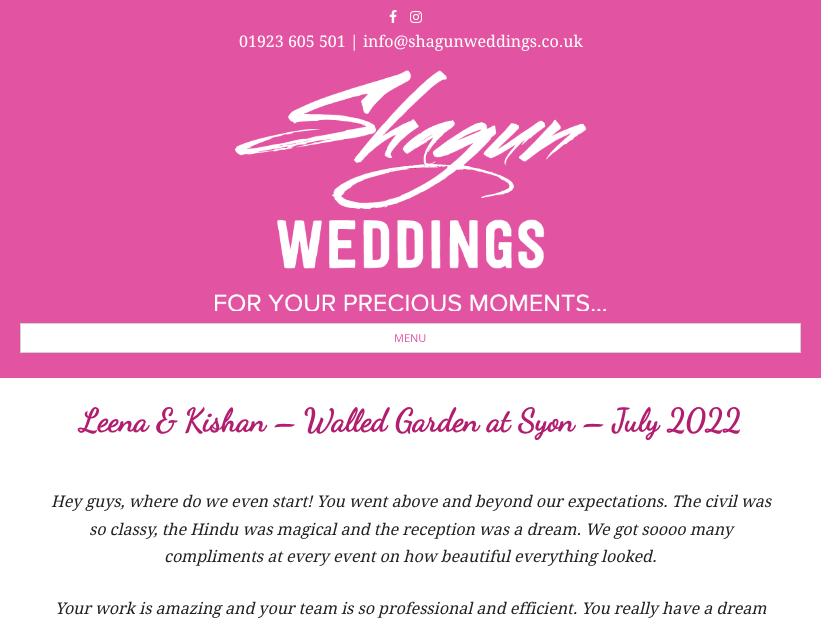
<svg xmlns="http://www.w3.org/2000/svg" width="821" height="631">
	<rect width="100%" height="100%" fill="#FFFFFF" />
	<rect x="0" y="0" width="821" height="378" fill="#E253A1" />
	<image x="389" y="10" width="8" height="13" href="assets/img1.png" />
	<image x="410" y="11" width="12" height="12" href="assets/img2.png" />
	<text x="239" y="47" font-family="Droid Serif" font-size="16" fill="#FFFFFF">01923 605 501 | info@shagunweddings.co.uk</text>
	<image x="215" y="70" width="391" height="241" href="assets/img3.png" />
	<rect x="20.5" y="323.5" width="780" height="29" fill="#FFFFFF" stroke="#D2D2D2" />
	<text x="394" y="342" font-family="Open Sans" font-size="11" fill="#E253A1">MENU</text>
	<text x="80" y="431" font-family="Dancing Script" font-size="32" font-weight="700" fill="#B21E6F">Leena &amp; Kishan – Walled Garden at Syon – July 2022</text>
	<g font-family="Droid Serif" font-size="16" font-style="italic" fill="#212121">
		<text x="51" y="507">Hey guys, where do we even start! You went above and beyond our expectations. The civil was</text>
		<text x="89" y="535">so classy, the Hindu was magical and the reception was a dream. We got soooo many</text>
		<text x="164" y="562">compliments at every event on how beautiful everything looked.</text>
		<text x="55" y="614">Your work is amazing and your team is so professional and efficient. You really have a dream</text>
	</g>
</svg>
